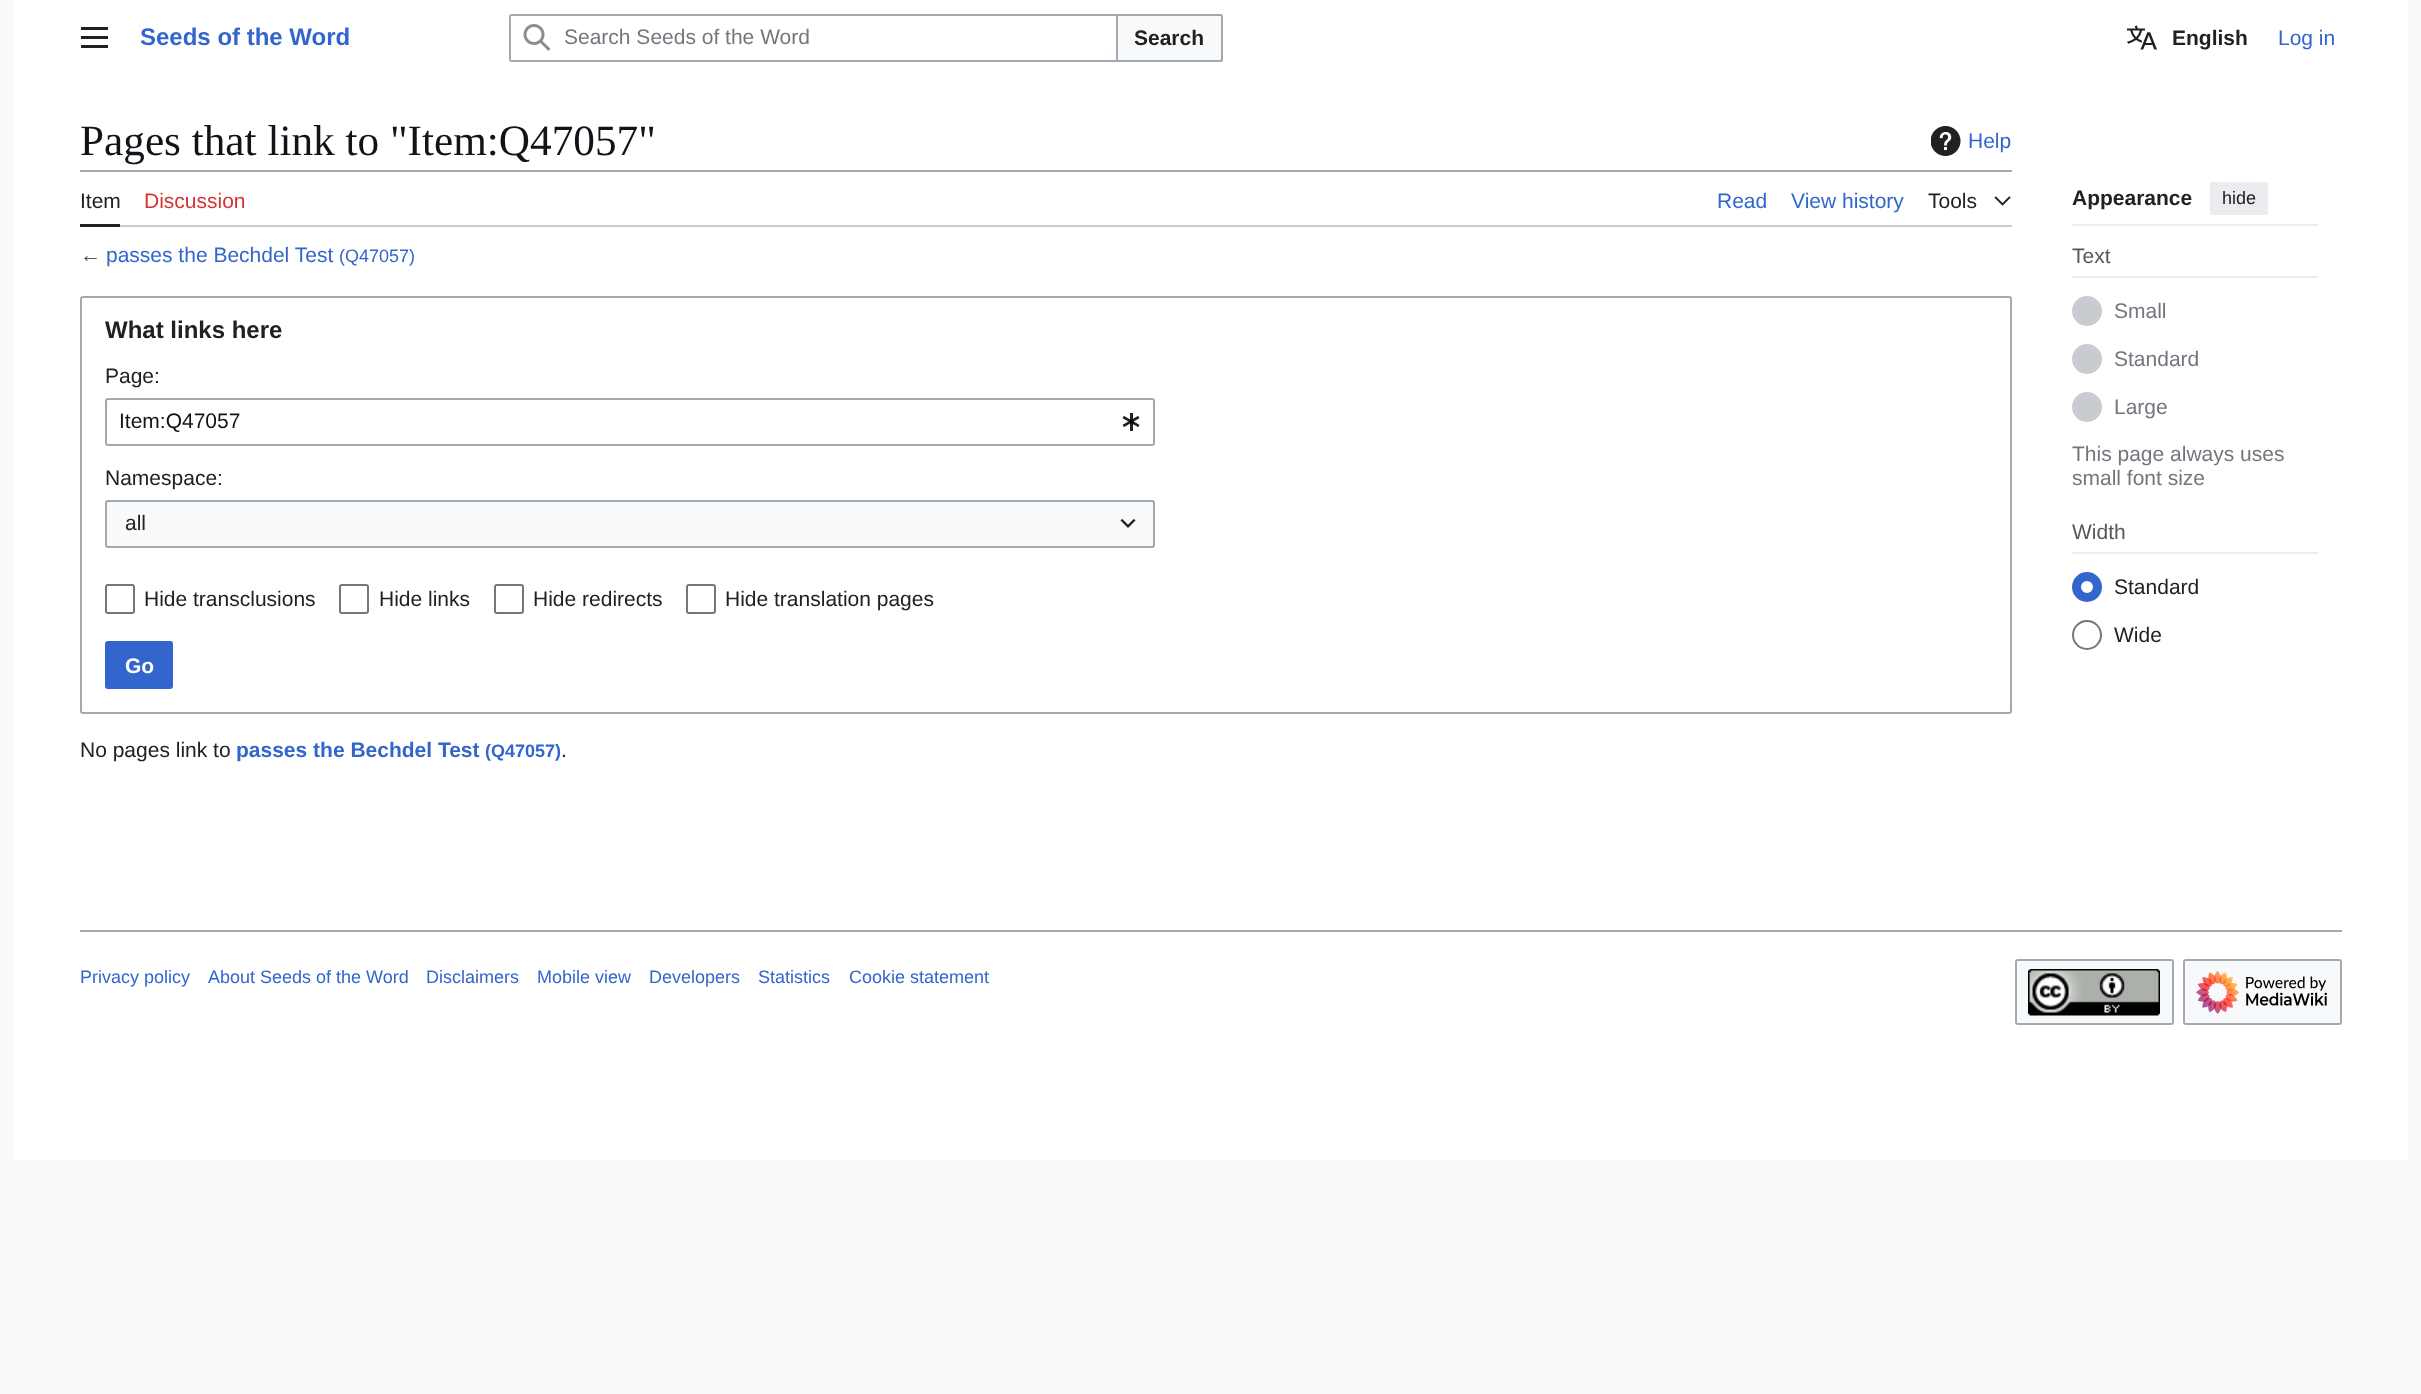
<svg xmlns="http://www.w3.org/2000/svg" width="2421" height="1394">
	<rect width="100%" height="100%" fill="#F8F9FA" />
	<rect x="14" y="0" width="2394" height="1160" fill="#FFFFFF" />
	<image x="81" y="27" width="27" height="21" href="assets/img1.png" />
	<text x="140" y="45" font-family="Liberation Sans" font-size="24" font-weight="700" fill="#3366CC">Seeds of the Word</text>
	<rect x="510" y="15" width="712" height="46" rx="2" fill="none" stroke="#A2A9B1" stroke-width="2" />
	<path d="M1117 15H1220C1221 15 1222 16 1222 17V59C1222 60 1221 61 1220 61H1117Z" fill="#F8F9FA" stroke="#A2A9B1" stroke-width="2" />
	<path d="M512 14H1118V62H512C510.5 62 509 60.5 509 59V17C509 15.5 510.5 14 512 14Z" fill="#FFFFFF" />
	<path d="M512 14C510 14 509 15 509 17V59C509 61 510 62 512 62H1118V14ZM511 16V60H1116V16Z" fill="#A2A9B1" fill-rule="evenodd" />
	<image x="523" y="24" width="28" height="27" href="assets/img2.png" />
	<text x="564" y="44" font-family="Liberation Sans" font-size="21" fill="#72777D">Search Seeds of the Word</text>
	<text x="1134" y="45" font-family="Liberation Sans" font-size="21" font-weight="700" fill="#202122">Search</text>
	<image x="2127" y="25" width="30" height="25" href="assets/img3.png" />
	<text x="2172" y="45" font-family="Liberation Sans" font-size="21" font-weight="700" fill="#202122">English</text>
	<text x="2278" y="45" font-family="Liberation Sans" font-size="21" fill="#3366CC">Log in</text>
	<text x="80" y="155" font-family="Liberation Serif" font-size="43.25" fill="#101418">Pages that link to "Item:Q47057"</text>
	<image x="1931" y="126" width="30" height="30" href="assets/img4.png" />
	<text x="1968" y="148" font-family="Liberation Sans" font-size="21" fill="#3366CC">Help</text>
	<rect x="80" y="170" width="1932" height="2" fill="#A2A9B1" />
	<path d="M80 225V227H2012V173V225Z" fill="#C8CCD1" />
	<rect x="80" y="224" width="40" height="3" fill="#202122" />
	<text x="80" y="208" font-family="Liberation Sans" font-size="21" fill="#202122">Item</text>
	<text x="144" y="208" font-family="Liberation Sans" font-size="21" fill="#D73333">Discussion</text>
	<g font-family="Liberation Sans" font-size="21" fill="#3366CC">
		<text x="1717" y="208">Read</text>
		<text x="1791" y="208">View history</text>
	</g>
	<text x="1928" y="208" font-family="Liberation Sans" font-size="21" fill="#202122">Tools</text>
	<image x="1994" y="196" width="17" height="10" href="assets/img5.png" />
	<rect x="2072" y="224" width="246" height="2" fill="#EAECF0" />
	<text x="2072" y="205" font-family="Liberation Sans" font-size="21" font-weight="700" fill="#202122">Appearance</text>
	<rect x="2210" y="182" width="58" height="33" rx="3" fill="#EAECF0" />
	<text x="2222" y="204" font-family="Liberation Sans" font-size="18" fill="#202122">hide</text>
	<rect x="2072" y="276" width="246" height="2" fill="#EAECF0" />
	<text x="2072" y="263" font-family="Liberation Sans" font-size="21" fill="#54595D">Text</text>
	<circle cx="2087" cy="311" r="14" fill="#C8CCD1" stroke="#C8CCD1" stroke-width="2" />
	<text x="2114" y="318" font-family="Liberation Sans" font-size="21" fill="#72777D">Small</text>
	<circle cx="2087" cy="359" r="14" fill="#C8CCD1" stroke="#C8CCD1" stroke-width="2" />
	<text x="2114" y="366" font-family="Liberation Sans" font-size="21" fill="#72777D">Standard</text>
	<circle cx="2087" cy="407" r="14" fill="#C8CCD1" stroke="#C8CCD1" stroke-width="2" />
	<g font-family="Liberation Sans" font-size="21" fill="#72777D">
		<text x="2114" y="414">Large</text>
		<text x="2072" y="461">This page always uses</text>
		<text x="2072" y="485">small font size</text>
	</g>
	<rect x="2072" y="552" width="246" height="2" fill="#EAECF0" />
	<text x="2072" y="539" font-family="Liberation Sans" font-size="21" fill="#54595D">Width</text>
	<circle cx="2087" cy="587" r="10.5" fill="none" stroke="#3366CC" stroke-width="9" />
	<text x="2114" y="594" font-family="Liberation Sans" font-size="21" fill="#202122">Standard</text>
	<circle cx="2087" cy="635" r="14" fill="none" stroke="#72777D" stroke-width="2" />
	<text x="2114" y="642" font-family="Liberation Sans" font-size="21" fill="#202122">Wide</text>
	<text x="80" y="262" font-family="Liberation Sans" font-size="21" fill="#54595D">←</text>
	<text x="106" y="262" font-family="Liberation Sans" font-size="21" fill="#3366CC">passes the Bechdel Test</text>
	<text x="339" y="262" font-family="Liberation Sans" font-size="18" fill="#3366CC">(Q47057)</text>
	<rect x="81" y="297" width="1930" height="416" rx="2" fill="none" stroke="#A2A9B1" stroke-width="2" />
	<text x="105" y="338" font-family="Liberation Sans" font-size="24" font-weight="700" fill="#202122">What links here</text>
	<text x="105" y="383" font-family="Liberation Sans" font-size="21" fill="#202122">Page:</text>
	<rect x="106" y="399" width="1048" height="46" rx="2" fill="none" stroke="#A2A9B1" stroke-width="2" />
	<text x="119" y="428" font-family="Liberation Sans" font-size="21" fill="#101418">Item:Q47057</text>
	<image x="1122" y="413" width="18" height="18" href="assets/img6.png" />
	<text x="105" y="485" font-family="Liberation Sans" font-size="21" fill="#202122">Namespace:</text>
	<rect x="105" y="500" width="1050" height="48" fill="#F8F9FA" />
	<rect x="106" y="501" width="1048" height="46" rx="2" fill="none" stroke="#A2A9B1" stroke-width="2" />
	<text x="125" y="530" font-family="Liberation Sans" font-size="21" fill="#202122">all</text>
	<image x="1120" y="519" width="16" height="9" href="assets/img7.png" />
	<rect x="106" y="585" width="28" height="28" rx="2" fill="none" stroke="#72777D" stroke-width="2" />
	<text x="144" y="606" font-family="Liberation Sans" font-size="21" fill="#202122">Hide transclusions</text>
	<rect x="340" y="585" width="28" height="28" rx="2" fill="none" stroke="#72777D" stroke-width="2" />
	<text x="379" y="606" font-family="Liberation Sans" font-size="21" fill="#202122">Hide links</text>
	<rect x="495" y="585" width="28" height="28" rx="2" fill="none" stroke="#72777D" stroke-width="2" />
	<text x="533" y="606" font-family="Liberation Sans" font-size="21" fill="#202122">Hide redirects</text>
	<rect x="687" y="585" width="28" height="28" rx="2" fill="none" stroke="#72777D" stroke-width="2" />
	<text x="725" y="606" font-family="Liberation Sans" font-size="21" fill="#202122">Hide translation pages</text>
	<rect x="106" y="642" width="66" height="46" rx="2" fill="#3366CC" stroke="#3366CC" stroke-width="2" />
	<text x="125" y="673" font-family="Liberation Sans" font-size="21" font-weight="700" fill="#FFFFFF">Go</text>
	<text x="80" y="757" font-family="Liberation Sans" font-size="21" fill="#202122">No pages link to</text>
	<text x="236" y="757" font-family="Liberation Sans" font-size="21" font-weight="700" fill="#3366CC">passes the Bechdel Test</text>
	<text x="485" y="757" font-family="Liberation Sans" font-size="18" font-weight="700" fill="#3366CC">(Q47057)</text>
	<text x="561" y="757" font-family="Liberation Sans" font-size="21" fill="#202122">.</text>
	<rect x="80" y="930" width="2262" height="2" fill="#A2A9B1" />
	<g font-family="Liberation Sans" font-size="18" fill="#3366CC">
		<text x="80" y="983">Privacy policy</text>
		<text x="208" y="983">About Seeds of the Word</text>
		<text x="426" y="983">Disclaimers</text>
		<text x="537" y="983">Mobile view</text>
		<text x="649" y="983">Developers</text>
		<text x="758" y="983">Statistics</text>
		<text x="849" y="983">Cookie statement</text>
	</g>
	<rect x="2016" y="960" width="157" height="64" rx="2" fill="#F8F9FA" stroke="#A2A9B1" stroke-width="2" />
	<image x="2028" y="969" width="132" height="47" href="assets/img8.png" />
	<rect x="2184" y="960" width="157" height="64" rx="2" fill="#F8F9FA" stroke="#A2A9B1" stroke-width="2" />
	<image x="2196" y="970" width="131" height="44" href="assets/img9.png" />
</svg>
